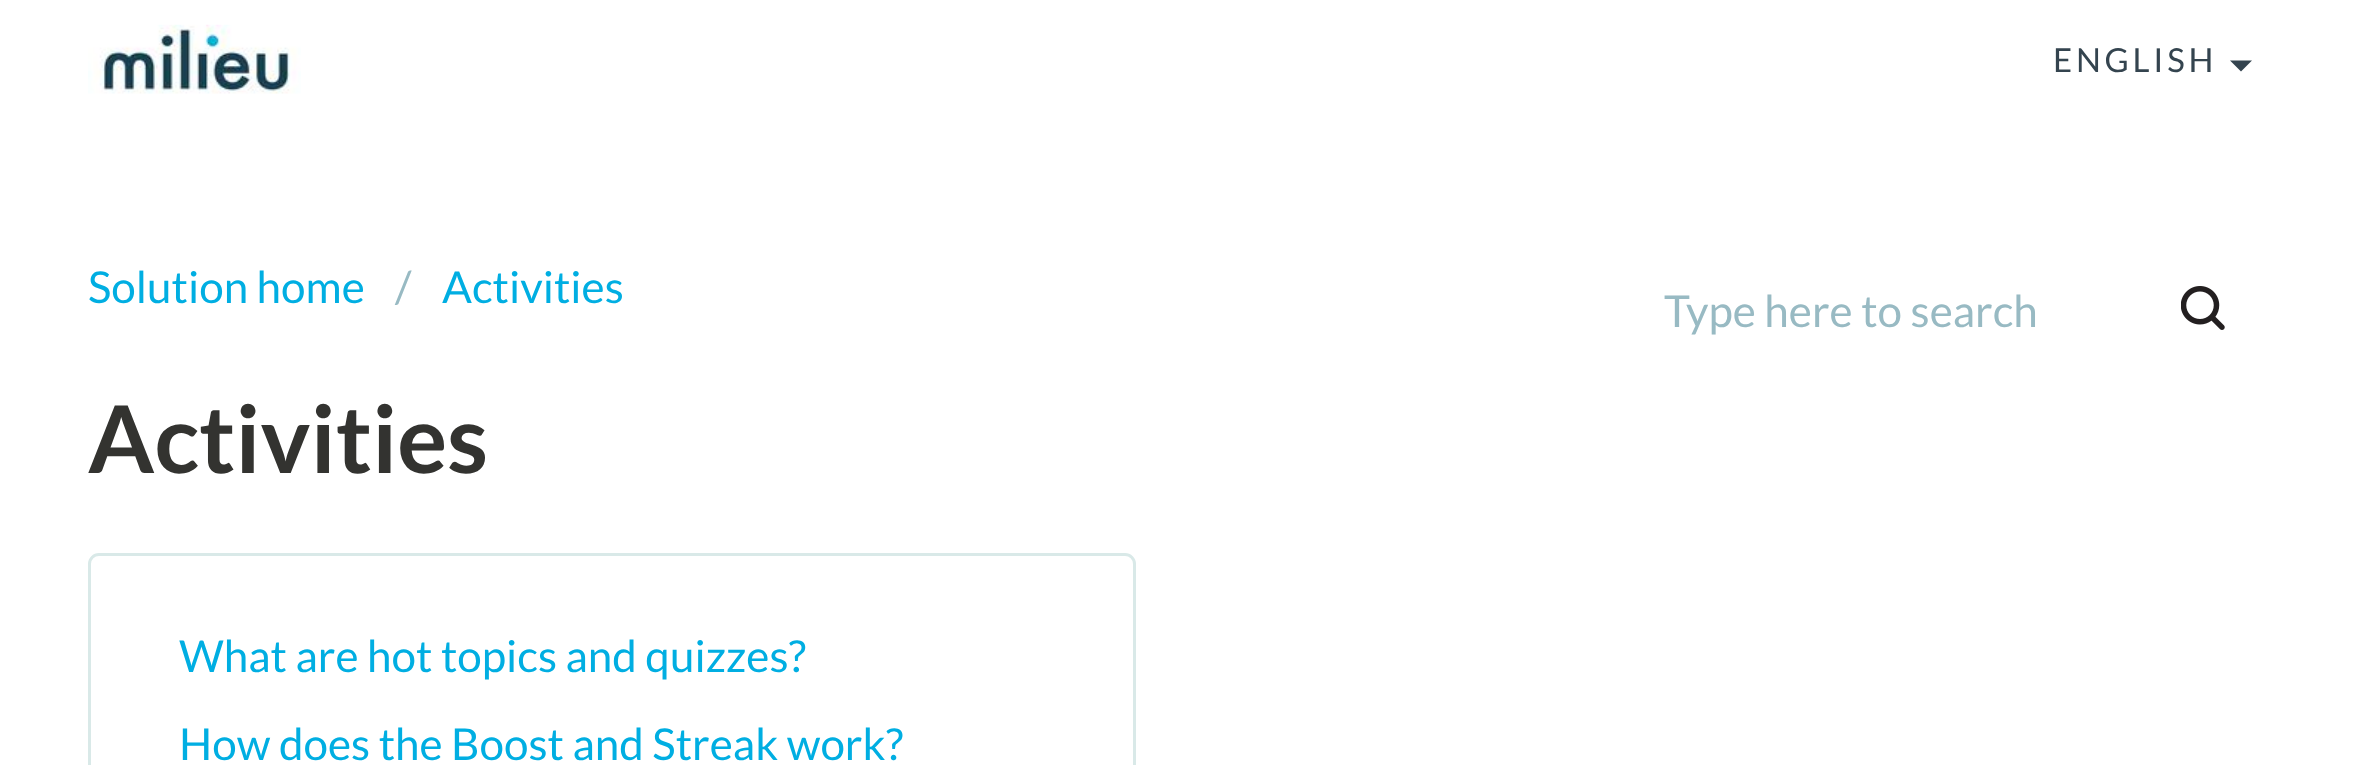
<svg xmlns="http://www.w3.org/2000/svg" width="2356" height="765">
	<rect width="100%" height="100%" fill="#FFFFFF" />
	<image x="88" y="24" width="213" height="70" href="assets/img1.png" />
	<text x="2053" y="72" font-family="Lato" font-size="33" letter-spacing="3.75" fill="#34444F">ENGLISH</text>
	<path d="M2230 60.5H2252L2241 71.5Z" fill="#34444F" />
	<text x="88" y="303" font-family="Lato" font-size="44" fill="#00AEE2">Solution home</text>
	<text x="395" y="303" font-family="Lato" font-size="44" fill="#98BAC3">/</text>
	<text x="442" y="303" font-family="Lato" font-size="44" fill="#00AEE2">Activities</text>
	<text x="1664" y="327" font-family="Lato" font-size="44" fill="#98BAC3">Type here to search</text>
	<image x="2181" y="286" width="44" height="44" href="assets/img2.png" />
	<text x="88" y="473" font-family="Lato" font-size="93.5" font-weight="700" fill="#333330">Activities</text>
	<rect x="89.5" y="554.5" width="1045" height="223" rx="9.5" fill="none" stroke="#D9E9E8" stroke-width="3" />
	<g font-family="Lato" font-size="44" fill="#00AEE2">
		<text x="179" y="672">What are hot topics and quizzes?</text>
		<text x="179" y="760">How does the Boost and Streak work?</text>
	</g>
</svg>
